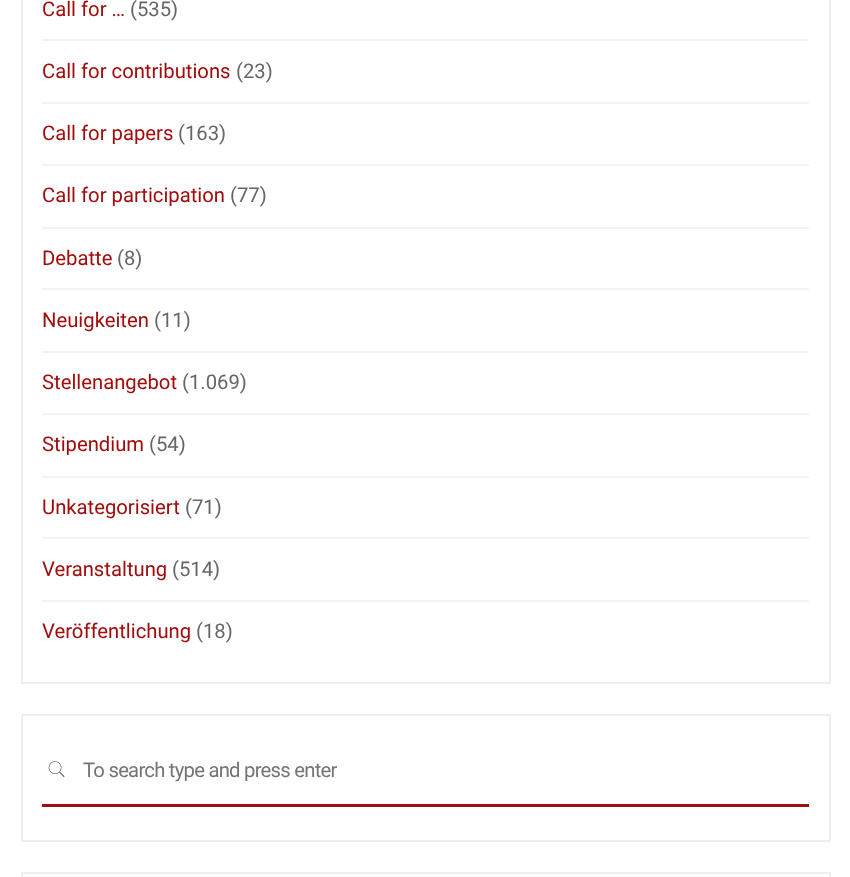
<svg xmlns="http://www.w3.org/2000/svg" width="850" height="877">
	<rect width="100%" height="100%" fill="#FFFFFF" />
	<rect x="22" y="-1" width="808" height="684" fill="none" stroke="#EEEEEE" stroke-width="2" />
	<rect x="42" y="39" width="767" height="2" fill="#F2F2F2" />
	<text x="42" y="16" font-family="Roboto" font-size="20.25" fill="#A10D0D">Call for …</text>
	<text x="130" y="16" font-family="Roboto" font-size="20.25" fill="#666666">(535)</text>
	<rect x="42" y="102" width="767" height="2" fill="#F2F2F2" />
	<text x="42" y="78" font-family="Roboto" font-size="20.25" fill="#A10D0D">Call for contributions</text>
	<text x="236" y="78" font-family="Roboto" font-size="20.25" fill="#666666">(23)</text>
	<rect x="42" y="164" width="767" height="2" fill="#F2F2F2" />
	<text x="42" y="140" font-family="Roboto" font-size="20.25" fill="#A10D0D">Call for papers</text>
	<text x="178" y="140" font-family="Roboto" font-size="20.25" fill="#666666">(163)</text>
	<rect x="42" y="227" width="767" height="2" fill="#F2F2F2" />
	<text x="42" y="202" font-family="Roboto" font-size="20.25" fill="#A10D0D">Call for participation</text>
	<text x="230" y="202" font-family="Roboto" font-size="20.25" fill="#666666">(77)</text>
	<rect x="42" y="288" width="767" height="2" fill="#F2F2F2" />
	<text x="42" y="265" font-family="Roboto" font-size="20.25" fill="#A10D0D">Debatte</text>
	<text x="117" y="265" font-family="Roboto" font-size="20.25" fill="#666666">(8)</text>
	<rect x="42" y="351" width="767" height="2" fill="#F2F2F2" />
	<text x="42" y="327" font-family="Roboto" font-size="20.25" fill="#A10D0D">Neuigkeiten</text>
	<text x="154" y="327" font-family="Roboto" font-size="20.25" fill="#666666">(11)</text>
	<rect x="42" y="413" width="767" height="2" fill="#F2F2F2" />
	<text x="42" y="389" font-family="Roboto" font-size="20.25" fill="#A10D0D">Stellenangebot</text>
	<text x="182" y="389" font-family="Roboto" font-size="20.25" fill="#666666">(1.069)</text>
	<rect x="42" y="476" width="767" height="2" fill="#F2F2F2" />
	<text x="42" y="451" font-family="Roboto" font-size="20.25" fill="#A10D0D">Stipendium</text>
	<text x="149" y="451" font-family="Roboto" font-size="20.25" fill="#666666">(54)</text>
	<rect x="42" y="537" width="767" height="2" fill="#F2F2F2" />
	<text x="42" y="514" font-family="Roboto" font-size="20.25" fill="#A10D0D">Unkategorisiert</text>
	<text x="185" y="514" font-family="Roboto" font-size="20.25" fill="#666666">(71)</text>
	<rect x="42" y="600" width="767" height="2" fill="#F2F2F2" />
	<text x="42" y="576" font-family="Roboto" font-size="20.25" fill="#A10D0D">Veranstaltung</text>
	<text x="172" y="576" font-family="Roboto" font-size="20.25" fill="#666666">(514)</text>
	<text x="42" y="638" font-family="Roboto" font-size="20.25" fill="#A10D0D">Veröffentlichung</text>
	<text x="196" y="638" font-family="Roboto" font-size="20.25" fill="#666666">(18)</text>
	<rect x="22" y="715" width="808" height="126" fill="none" stroke="#EEEEEE" stroke-width="2" />
	<image x="48" y="761" width="17" height="17" href="assets/img1.png" />
	<rect x="42" y="804" width="767" height="3" fill="#A10D0D" />
	<text x="83" y="777" font-family="Roboto" font-size="20.25" letter-spacing="-0.75" fill="#757575">To search type and press enter</text>
	<rect x="22" y="873" width="808" height="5" fill="none" stroke="#EEEEEE" stroke-width="2" />
</svg>
